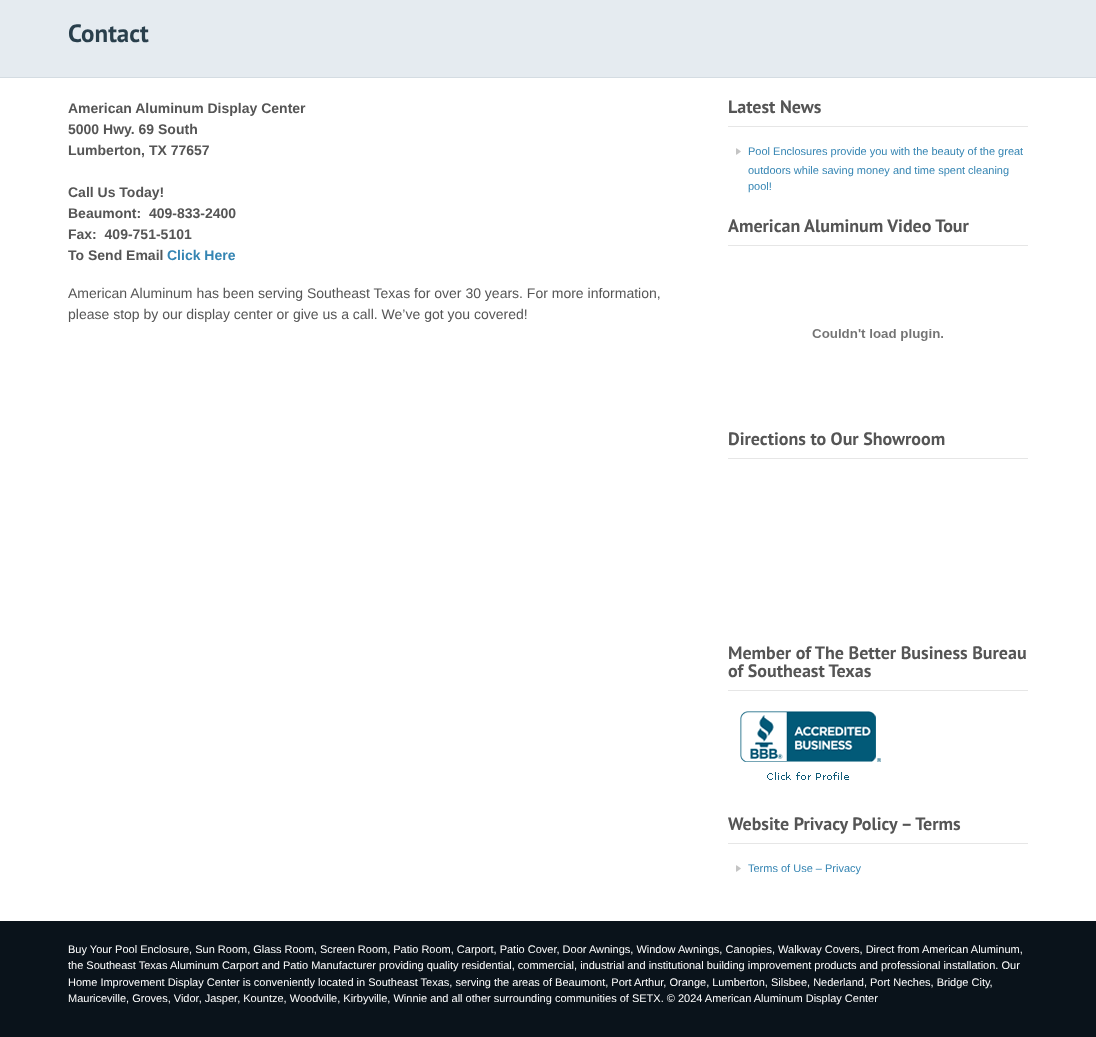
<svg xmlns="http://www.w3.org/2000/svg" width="1096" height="1037">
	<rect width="100%" height="100%" fill="#FFFFFF" />
	<rect x="0" y="0" width="1096" height="77" fill="#E5EBF0" />
	<rect x="0" y="77" width="1096" height="1" fill="#D4DCE2" />
	<text x="68" y="42" font-family="PT Sans" font-size="25" font-weight="700" fill="#293F4C">Contact</text>
	<g font-family="Liberation Sans" font-size="14" font-weight="700" fill="#555555">
		<text x="68" y="113">American Aluminum Display Center</text>
		<text x="68" y="134">5000 Hwy. 69 South</text>
		<text x="68" y="155">Lumberton, TX 77657</text>
		<text x="68" y="197">Call Us Today!</text>
		<text x="68" y="218" xml:space="preserve">Beaumont:  409-833-2400</text>
		<text x="68" y="239" xml:space="preserve">Fax:  409-751-5101</text>
		<text x="68" y="260">To Send Email</text>
	</g>
	<text x="167" y="260" font-family="Liberation Sans" font-size="14" font-weight="700" fill="#3585B3">Click Here</text>
	<g font-family="Liberation Sans" font-size="14" fill="#555555">
		<text x="68" y="298">American Aluminum has been serving Southeast Texas for over 30 years. For more information,</text>
		<text x="68" y="319">please stop by our display center or give us a call. We’ve got you covered!</text>
	</g>
	<rect x="728" y="126" width="300" height="1" fill="#E6E6E6" />
	<text x="728" y="113" font-family="PT Sans" font-size="18" font-weight="700" fill="#555555">Latest News</text>
	<image x="736" y="148" width="5" height="7" href="assets/img1.png" />
	<g font-family="Liberation Sans" font-size="11" fill="#3585B3">
		<text x="748" y="155">Pool Enclosures provide you with the beauty of the great</text>
		<text x="748" y="174">outdoors while saving money and time spent cleaning</text>
		<text x="748" y="190">pool!</text>
	</g>
	<rect x="728" y="245" width="300" height="1" fill="#E6E6E6" />
	<text x="728" y="232" font-family="PT Sans" font-size="18" font-weight="700" fill="#555555">American Aluminum Video Tour</text>
	<image x="812" y="329" width="131" height="12" href="assets/img2.png" />
	<rect x="728" y="458" width="300" height="1" fill="#E6E6E6" />
	<text x="728" y="445" font-family="PT Sans" font-size="18" font-weight="700" fill="#555555">Directions to Our Showroom</text>
	<rect x="728" y="690" width="300" height="1" fill="#E6E6E6" />
	<g font-family="PT Sans" font-size="18" font-weight="700" fill="#555555">
		<text x="728" y="659">Member of The Better Business Bureau</text>
		<text x="728" y="677">of Southeast Texas</text>
	</g>
	<image x="740" y="711" width="141" height="69" href="assets/img3.png" />
	<rect x="728" y="843" width="300" height="1" fill="#E6E6E6" />
	<text x="728" y="830" font-family="PT Sans" font-size="18" font-weight="700" fill="#555555">Website Privacy Policy – Terms</text>
	<image x="736" y="865" width="5" height="7" href="assets/img1.png" />
	<text x="748" y="872" font-family="Liberation Sans" font-size="11" fill="#3585B3">Terms of Use – Privacy</text>
	<rect x="0" y="921" width="1096" height="116" fill="#0A131B" />
	<g font-family="Liberation Sans" font-size="11" fill="#FFFFFF">
		<text x="68" y="953">Buy Your Pool Enclosure, Sun Room, Glass Room, Screen Room, Patio Room, Carport, Patio Cover, Door Awnings, Window Awnings, Canopies, Walkway Covers, Direct from American Aluminum,</text>
		<text x="68" y="969">the Southeast Texas Aluminum Carport and Patio Manufacturer providing quality residential, commercial, industrial and institutional building improvement products and professional installation. Our</text>
		<text x="68" y="986">Home Improvement Display Center is conveniently located in Southeast Texas, serving the areas of Beaumont, Port Arthur, Orange, Lumberton, Silsbee, Nederland, Port Neches, Bridge City,</text>
		<text x="68" y="1002">Mauriceville, Groves, Vidor, Jasper, Kountze, Woodville, Kirbyville, Winnie and all other surrounding communities of SETX. © 2024 American Aluminum Display Center</text>
	</g>
</svg>
